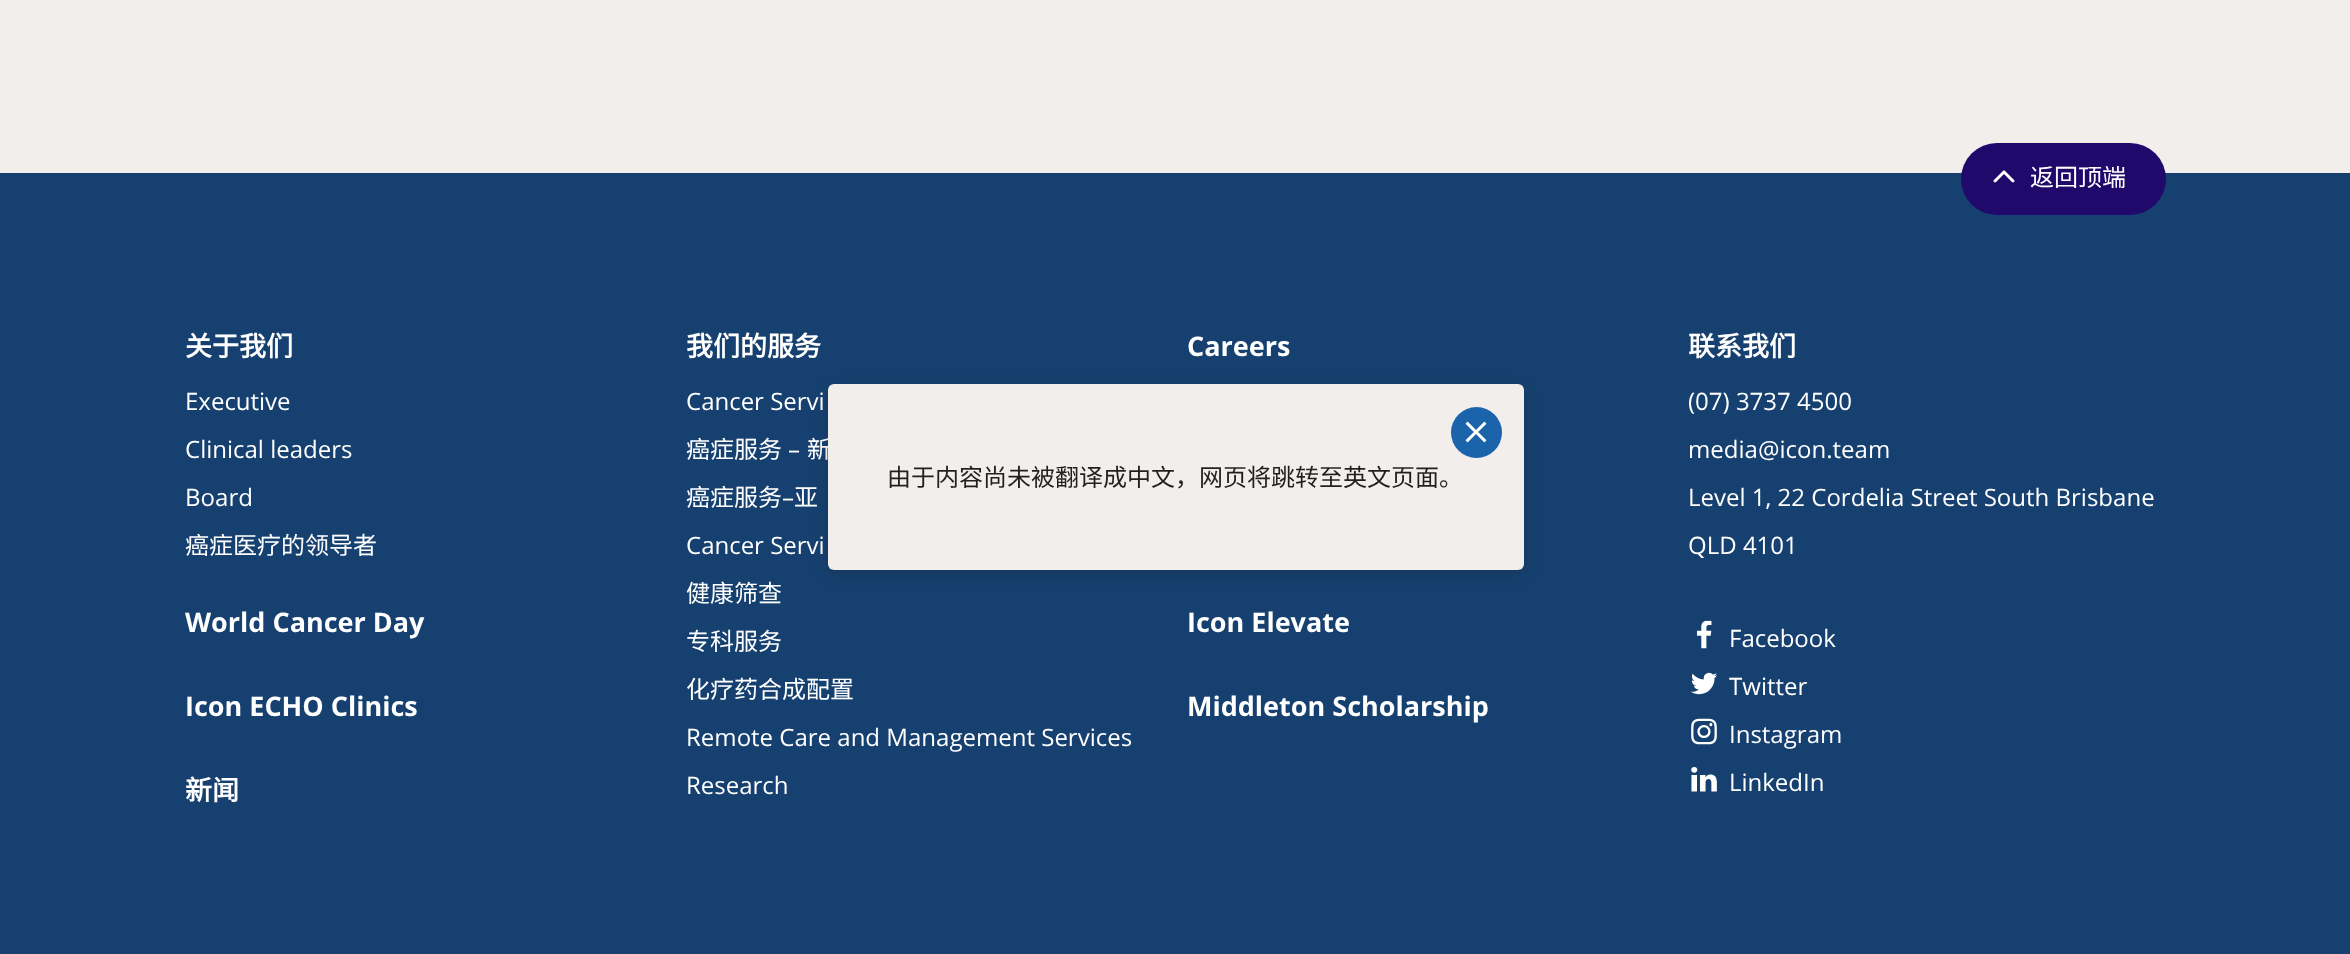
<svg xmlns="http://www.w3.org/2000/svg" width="2350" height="954">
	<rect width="100%" height="100%" fill="#F2EEEB" />
	<rect x="0" y="173" width="2350" height="781" fill="#15406F" />
	<rect x="1961" y="143" width="205" height="72" rx="36" fill="#21096C" />
	<image x="1993" y="170" width="22" height="13" href="assets/img1.png" />
	<text x="2030" y="186" font-family="Noto Sans CJK SC" font-size="24" fill="#FFFFFF">返回顶端</text>
	<text x="185" y="356" font-family="Noto Sans CJK SC" font-size="27" font-weight="700" fill="#FFFFFF">关于我们</text>
	<g font-family="Open Sans" font-size="24" fill="#FFFFFF">
		<text x="185" y="410">Executive</text>
		<text x="185" y="458">Clinical leaders</text>
		<text x="185" y="506">Board</text>
	</g>
	<text x="185" y="554" font-family="Noto Sans CJK SC" font-size="24" fill="#FFFFFF">癌症医疗的领导者</text>
	<g font-family="Open Sans" font-size="27" font-weight="700" fill="#FFFFFF">
		<text x="185" y="632">World Cancer Day</text>
		<text x="185" y="716">Icon ECHO Clinics</text>
	</g>
	<g font-family="Noto Sans CJK SC" font-size="27" font-weight="700" fill="#FFFFFF">
		<text x="185" y="800">新闻</text>
		<text x="686" y="356">我们的服务</text>
	</g>
	<text x="686" y="410" font-family="Open Sans" font-size="24" fill="#FFFFFF">Cancer Servi</text>
	<text x="686" y="458" font-family="Noto Sans CJK SC" font-size="24" fill="#FFFFFF">癌症服务</text>
	<text x="788" y="458" font-family="Open Sans" font-size="24" fill="#FFFFFF">–</text>
	<g font-family="Noto Sans CJK SC" font-size="24" fill="#FFFFFF">
		<text x="807" y="458">新</text>
		<text x="686" y="506">癌症服务</text>
	</g>
	<text x="782" y="506" font-family="Open Sans" font-size="24" fill="#FFFFFF">–</text>
	<text x="794" y="506" font-family="Noto Sans CJK SC" font-size="24" fill="#FFFFFF">亚</text>
	<text x="686" y="554" font-family="Open Sans" font-size="24" fill="#FFFFFF">Cancer Servi</text>
	<g font-family="Noto Sans CJK SC" font-size="24" fill="#FFFFFF">
		<text x="686" y="602">健康筛查</text>
		<text x="686" y="650">专科服务</text>
		<text x="686" y="698">化疗药合成配置</text>
	</g>
	<g font-family="Open Sans" font-size="24" fill="#FFFFFF">
		<text x="686" y="746">Remote Care and Management Services</text>
		<text x="686" y="794">Research</text>
	</g>
	<g font-family="Open Sans" font-size="27" font-weight="700" fill="#FFFFFF">
		<text x="1187" y="356">Careers</text>
		<text x="1187" y="632">Icon Elevate</text>
		<text x="1187" y="716">Middleton Scholarship</text>
	</g>
	<text x="1688" y="356" font-family="Noto Sans CJK SC" font-size="27" font-weight="700" fill="#FFFFFF">联系我们</text>
	<g font-family="Open Sans" font-size="24" fill="#FFFFFF">
		<text x="1688" y="410">(07) 3737 4500</text>
		<text x="1688" y="458">media@icon.team</text>
		<text x="1688" y="506">Level 1, 22 Cordelia Street South Brisbane</text>
		<text x="1688" y="554">QLD 4101</text>
	</g>
	<image x="1697" y="620" width="15" height="29" href="assets/img2.png" />
	<text x="1729" y="647" font-family="Open Sans" font-size="24" fill="#FFFFFF">Facebook</text>
	<image x="1691" y="672" width="26" height="23" href="assets/img3.png" />
	<text x="1729" y="695" font-family="Open Sans" font-size="24" fill="#FFFFFF">Twitter</text>
	<image x="1691" y="718" width="26" height="27" href="assets/img4.png" />
	<text x="1729" y="743" font-family="Open Sans" font-size="24" fill="#FFFFFF">Instagram</text>
	<image x="1691" y="767" width="26" height="25" href="assets/img5.png" />
	<text x="1729" y="791" font-family="Open Sans" font-size="24" fill="#FFFFFF">LinkedIn</text>
	<rect x="828" y="389" width="696" height="186" rx="6" fill="#231F20" fill-opacity="0.2" filter="blur(7.5px)" />
	<rect x="828" y="384" width="696" height="186" rx="6" fill="#F2EEEB" />
	<circle cx="1476.5" cy="432.5" r="25.5" fill="#1B64AC" />
	<image x="1465" y="421" width="22" height="22" href="assets/img6.png" />
	<text x="887" y="486" font-family="Noto Sans CJK SC" font-size="24" fill="#231F20">由于内容尚未被翻译成中文，网页将跳转至英文页面。</text>
</svg>
